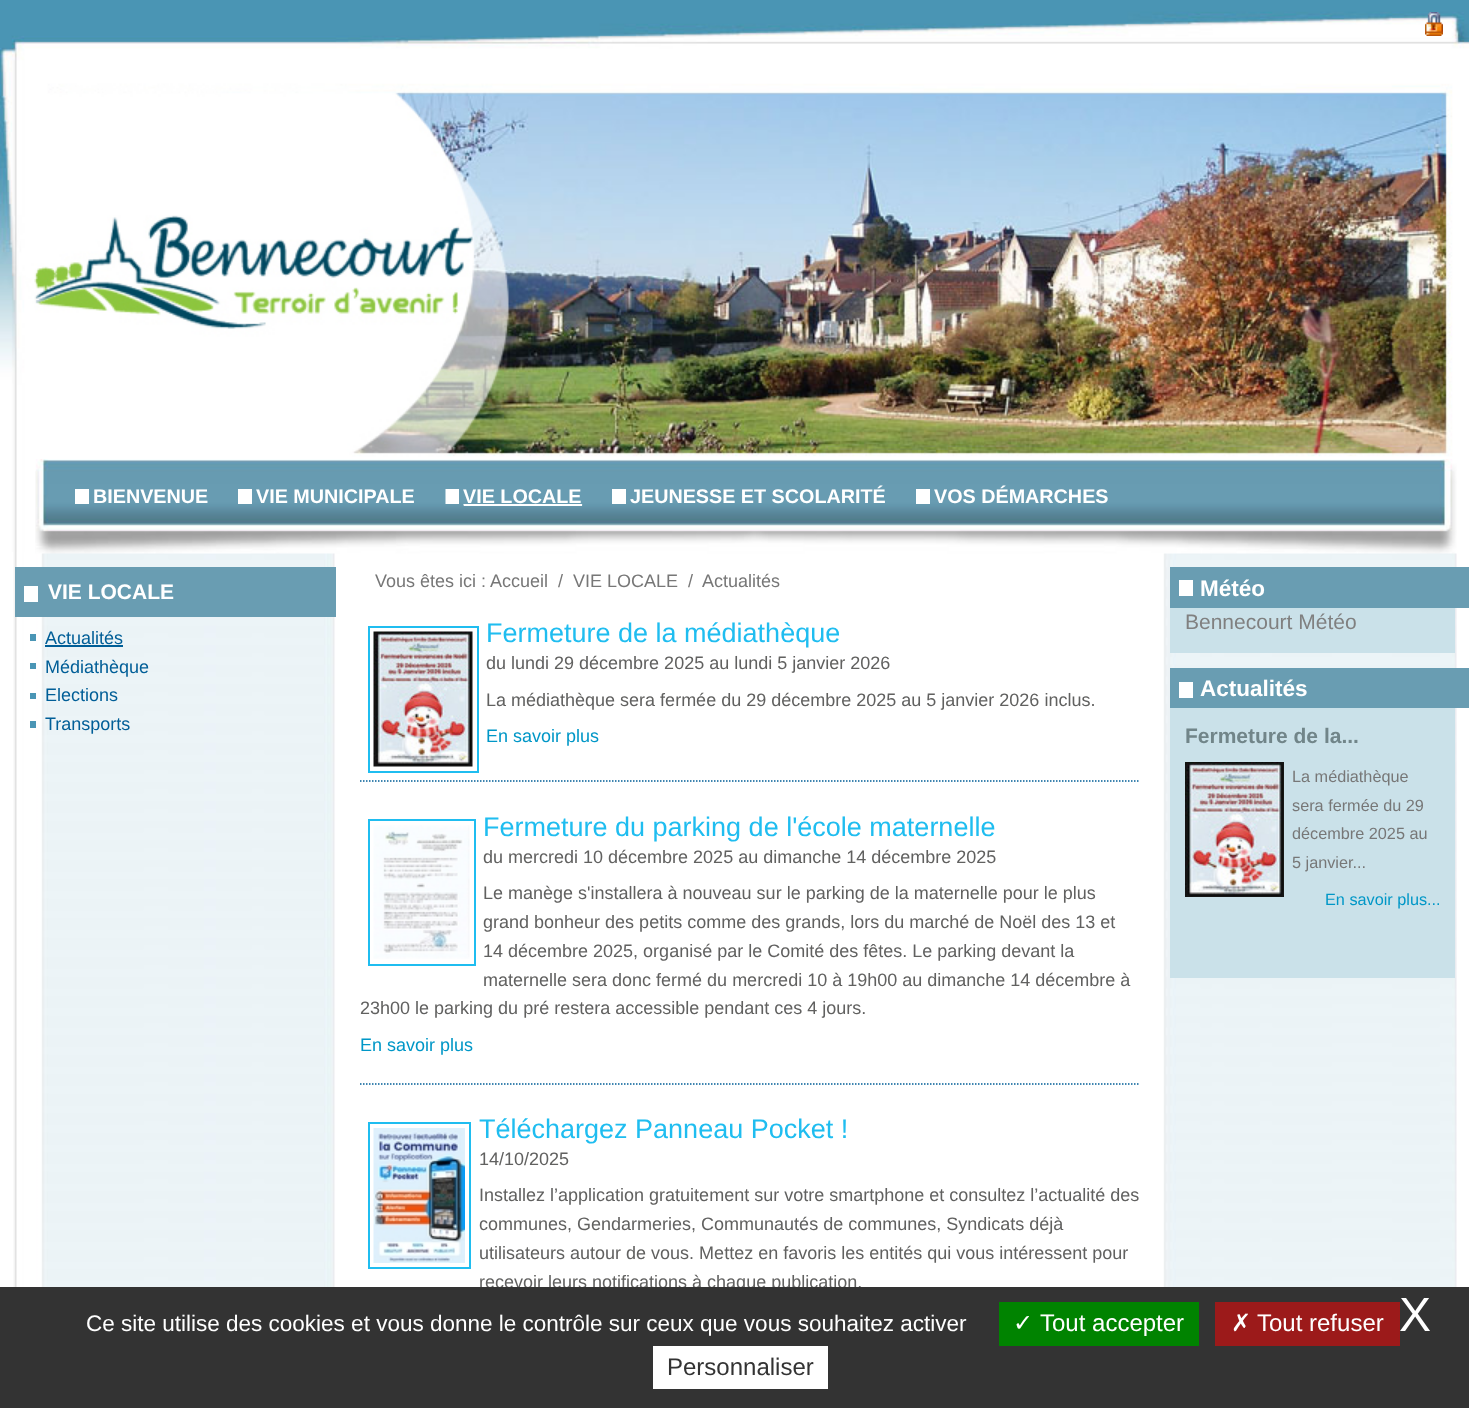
<svg xmlns="http://www.w3.org/2000/svg" width="1469" height="1408">
	<rect width="100%" height="100%" fill="#FFFFFF" />
	<image x="0" y="0" width="1469" height="552" href="assets/img3.png" />
	<image x="1425" y="12" width="18" height="24" href="assets/img1.png" />
	<image x="13" y="552" width="1444" height="735" href="assets/img2.png" />
	<image x="35" y="459" width="1422" height="95" href="assets/img4.png" />
	<rect x="75" y="489" width="14" height="15" fill="#FFFFFF" />
	<text x="93" y="503" font-family="Liberation Sans" font-size="19.75" font-weight="700" fill="#FFFFFF">BIENVENUE</text>
	<rect x="238" y="489" width="14" height="15" fill="#FFFFFF" />
	<text x="256" y="503" font-family="Liberation Sans" font-size="19.75" font-weight="700" fill="#FFFFFF">VIE MUNICIPALE</text>
	<image x="445" y="489" width="138" height="17" href="assets/img5.png" />
	<text x="463" y="503" font-family="Liberation Sans" font-size="19.75" font-weight="700" fill="#FFFFFF">VIE LOCALE</text>
	<rect x="464" y="505" width="118" height="1" fill="#FFFFFF" />
	<rect x="612" y="489" width="14" height="15" fill="#FFFFFF" />
	<text x="630" y="503" font-family="Liberation Sans" font-size="19.75" font-weight="700" fill="#FFFFFF">JEUNESSE ET SCOLARITÉ</text>
	<rect x="916" y="489" width="14" height="15" fill="#FFFFFF" />
	<text x="934" y="503" font-family="Liberation Sans" font-size="19.75" font-weight="700" fill="#FFFFFF">VOS DÉMARCHES</text>
	<rect x="15" y="567" width="321" height="50" fill="#699DB2" />
	<rect x="24" y="586" width="14" height="16" fill="#FFFFFF" />
	<text x="48" y="599" font-family="Liberation Sans" font-size="21" font-weight="700" fill="#FFFFFF">VIE LOCALE</text>
	<rect x="30" y="634" width="6" height="7" fill="#4A95B5" />
	<text x="45" y="644" font-family="Liberation Sans" font-size="18" fill="#005E97">Actualités</text>
	<rect x="45" y="645" width="78" height="2" fill="#005E97" />
	<rect x="30" y="663" width="6" height="6" fill="#4A95B5" />
	<text x="45" y="673" font-family="Liberation Sans" font-size="18" fill="#005E97">Médiathèque</text>
	<rect x="30" y="693" width="6" height="6" fill="#4A95B5" />
	<text x="45" y="701" font-family="Liberation Sans" font-size="18" fill="#005E97">Elections</text>
	<rect x="30" y="721" width="6" height="7" fill="#4A95B5" />
	<text x="45" y="730" font-family="Liberation Sans" font-size="18" fill="#005E97">Transports</text>
	<g font-family="Liberation Sans" font-size="18" fill="#777777">
		<text x="375" y="587">Vous êtes ici :</text>
		<text x="490" y="587">Accueil</text>
		<text x="558" y="587">/</text>
		<text x="573" y="587">VIE LOCALE</text>
		<text x="688" y="587">/</text>
		<text x="702" y="587">Actualités</text>
	</g>
	<rect x="369" y="627" width="109" height="145" fill="none" stroke="#1FBDF0" stroke-width="2" />
	<image x="373" y="631" width="100" height="136" href="assets/img6.png" />
	<text x="486" y="642" font-family="Liberation Sans" font-size="27" fill="#1FBDF0">Fermeture de la médiathèque</text>
	<g font-family="Liberation Sans" font-size="18" fill="#616160">
		<text x="486" y="669">du lundi 29 décembre 2025 au lundi 5 janvier 2026</text>
		<text x="486" y="706">La médiathèque sera fermée du 29 décembre 2025 au 5 janvier 2026 inclus.</text>
	</g>
	<text x="486" y="742" font-family="Liberation Sans" font-size="18" fill="#0097C7">En savoir plus</text>
	<path d="M360 781H1140" fill="none" stroke="#005E97" stroke-width="1.5" stroke-dasharray="1.5 1.5" />
	<rect x="369" y="820" width="106" height="145" fill="none" stroke="#1FBDF0" stroke-width="2" />
	<image x="373" y="825" width="97" height="134" href="assets/img7.png" />
	<text x="483" y="836" font-family="Liberation Sans" font-size="27" fill="#1FBDF0">Fermeture du parking de l'école maternelle</text>
	<g font-family="Liberation Sans" font-size="18" fill="#616160">
		<text x="483" y="863">du mercredi 10 décembre 2025 au dimanche 14 décembre 2025</text>
		<text x="483" y="899">Le manège s'installera à nouveau sur le parking de la maternelle pour le plus</text>
		<text x="483" y="928">grand bonheur des petits comme des grands, lors du marché de Noël des 13 et</text>
		<text x="483" y="957">14 décembre 2025, organisé par le Comité des fêtes. Le parking devant la</text>
		<text x="483" y="986">maternelle sera donc fermé du mercredi 10 à 19h00 au dimanche 14 décembre à</text>
		<text x="360" y="1014">23h00 le parking du pré restera accessible pendant ces 4 jours.</text>
	</g>
	<text x="360" y="1051" font-family="Liberation Sans" font-size="18" fill="#0097C7">En savoir plus</text>
	<path d="M360 1084H1140" fill="none" stroke="#005E97" stroke-width="1.5" stroke-dasharray="1.5 1.5" />
	<rect x="369" y="1123" width="101" height="145" fill="none" stroke="#1FBDF0" stroke-width="2" />
	<image x="373" y="1128" width="92" height="135" href="assets/img8.png" />
	<text x="479" y="1138" font-family="Liberation Sans" font-size="27" fill="#1FBDF0">Téléchargez Panneau Pocket !</text>
	<g font-family="Liberation Sans" font-size="18" fill="#616160">
		<text x="479" y="1165">14/10/2025</text>
		<text x="479" y="1201">Installez l’application gratuitement sur votre smartphone et consultez l’actualité des</text>
		<text x="479" y="1230">communes, Gendarmeries, Communautés de communes, Syndicats déjà</text>
		<text x="479" y="1259">utilisateurs autour de vous. Mettez en favoris les entités qui vous intéressent pour</text>
		<text x="479" y="1288">recevoir leurs notifications à chaque publication.</text>
	</g>
	<rect x="1170" y="608" width="285" height="45" fill="#CAE1E9" />
	<rect x="1170" y="567" width="299" height="41" fill="#699DB2" />
	<rect x="1179" y="580" width="14" height="16" fill="#FFFFFF" />
	<text x="1200" y="596" font-family="Liberation Sans" font-size="22.5" font-weight="700" fill="#FFFFFF">Météo</text>
	<text x="1185" y="629" font-family="Liberation Sans" font-size="21" fill="#808080">Bennecourt Météo</text>
	<rect x="1170" y="708" width="285" height="270" fill="#CAE1E9" />
	<rect x="1170" y="668" width="299" height="40" fill="#699DB2" />
	<rect x="1179" y="682" width="14" height="16" fill="#FFFFFF" />
	<text x="1200" y="696" font-family="Liberation Sans" font-size="22.5" font-weight="700" fill="#FFFFFF">Actualités</text>
	<text x="1185" y="743" font-family="Liberation Sans" font-size="21" font-weight="700" fill="#718589">Fermeture de la...</text>
	<image x="1185" y="762" width="99" height="135" href="assets/img9.png" />
	<g font-family="Liberation Sans" font-size="16.25" fill="#777777">
		<text x="1292" y="782">La médiathèque</text>
		<text x="1292" y="811">sera fermée du 29</text>
		<text x="1292" y="839">décembre 2025 au</text>
		<text x="1292" y="868">5 janvier...</text>
	</g>
	<text x="1325" y="905" font-family="Liberation Sans" font-size="16.25" fill="#0097C7">En savoir plus...</text>
	<rect x="0" y="1287" width="1469" height="121" fill="#333333" />
	<text x="86" y="1331" font-family="Liberation Sans" font-size="22.5" fill="#FFFFFF">Ce site utilise des cookies et vous donne le contrôle sur ceux que vous souhaitez activer</text>
	<rect x="999" y="1302" width="200" height="44" fill="#008300" />
	<text x="1013" y="1331" font-family="DejaVu Sans" font-size="24" fill="#FFFFFF">✓</text>
	<text x="1040" y="1331" font-family="Liberation Sans" font-size="24" fill="#FFFFFF">Tout accepter</text>
	<rect x="1215" y="1302" width="185" height="44" fill="#9C1A1A" />
	<text x="1231" y="1331" font-family="DejaVu Sans" font-size="24" fill="#FFFFFF">✗</text>
	<text x="1257" y="1331" font-family="Liberation Sans" font-size="24" fill="#FFFFFF">Tout refuser</text>
	<text x="1399" y="1331" font-family="Liberation Sans" font-size="48" fill="#FFFFFF">X</text>
	<rect x="653" y="1346" width="175" height="43" fill="#FFFFFF" />
	<text x="667" y="1375" font-family="Liberation Sans" font-size="24" fill="#333333">Personnaliser</text>
</svg>
